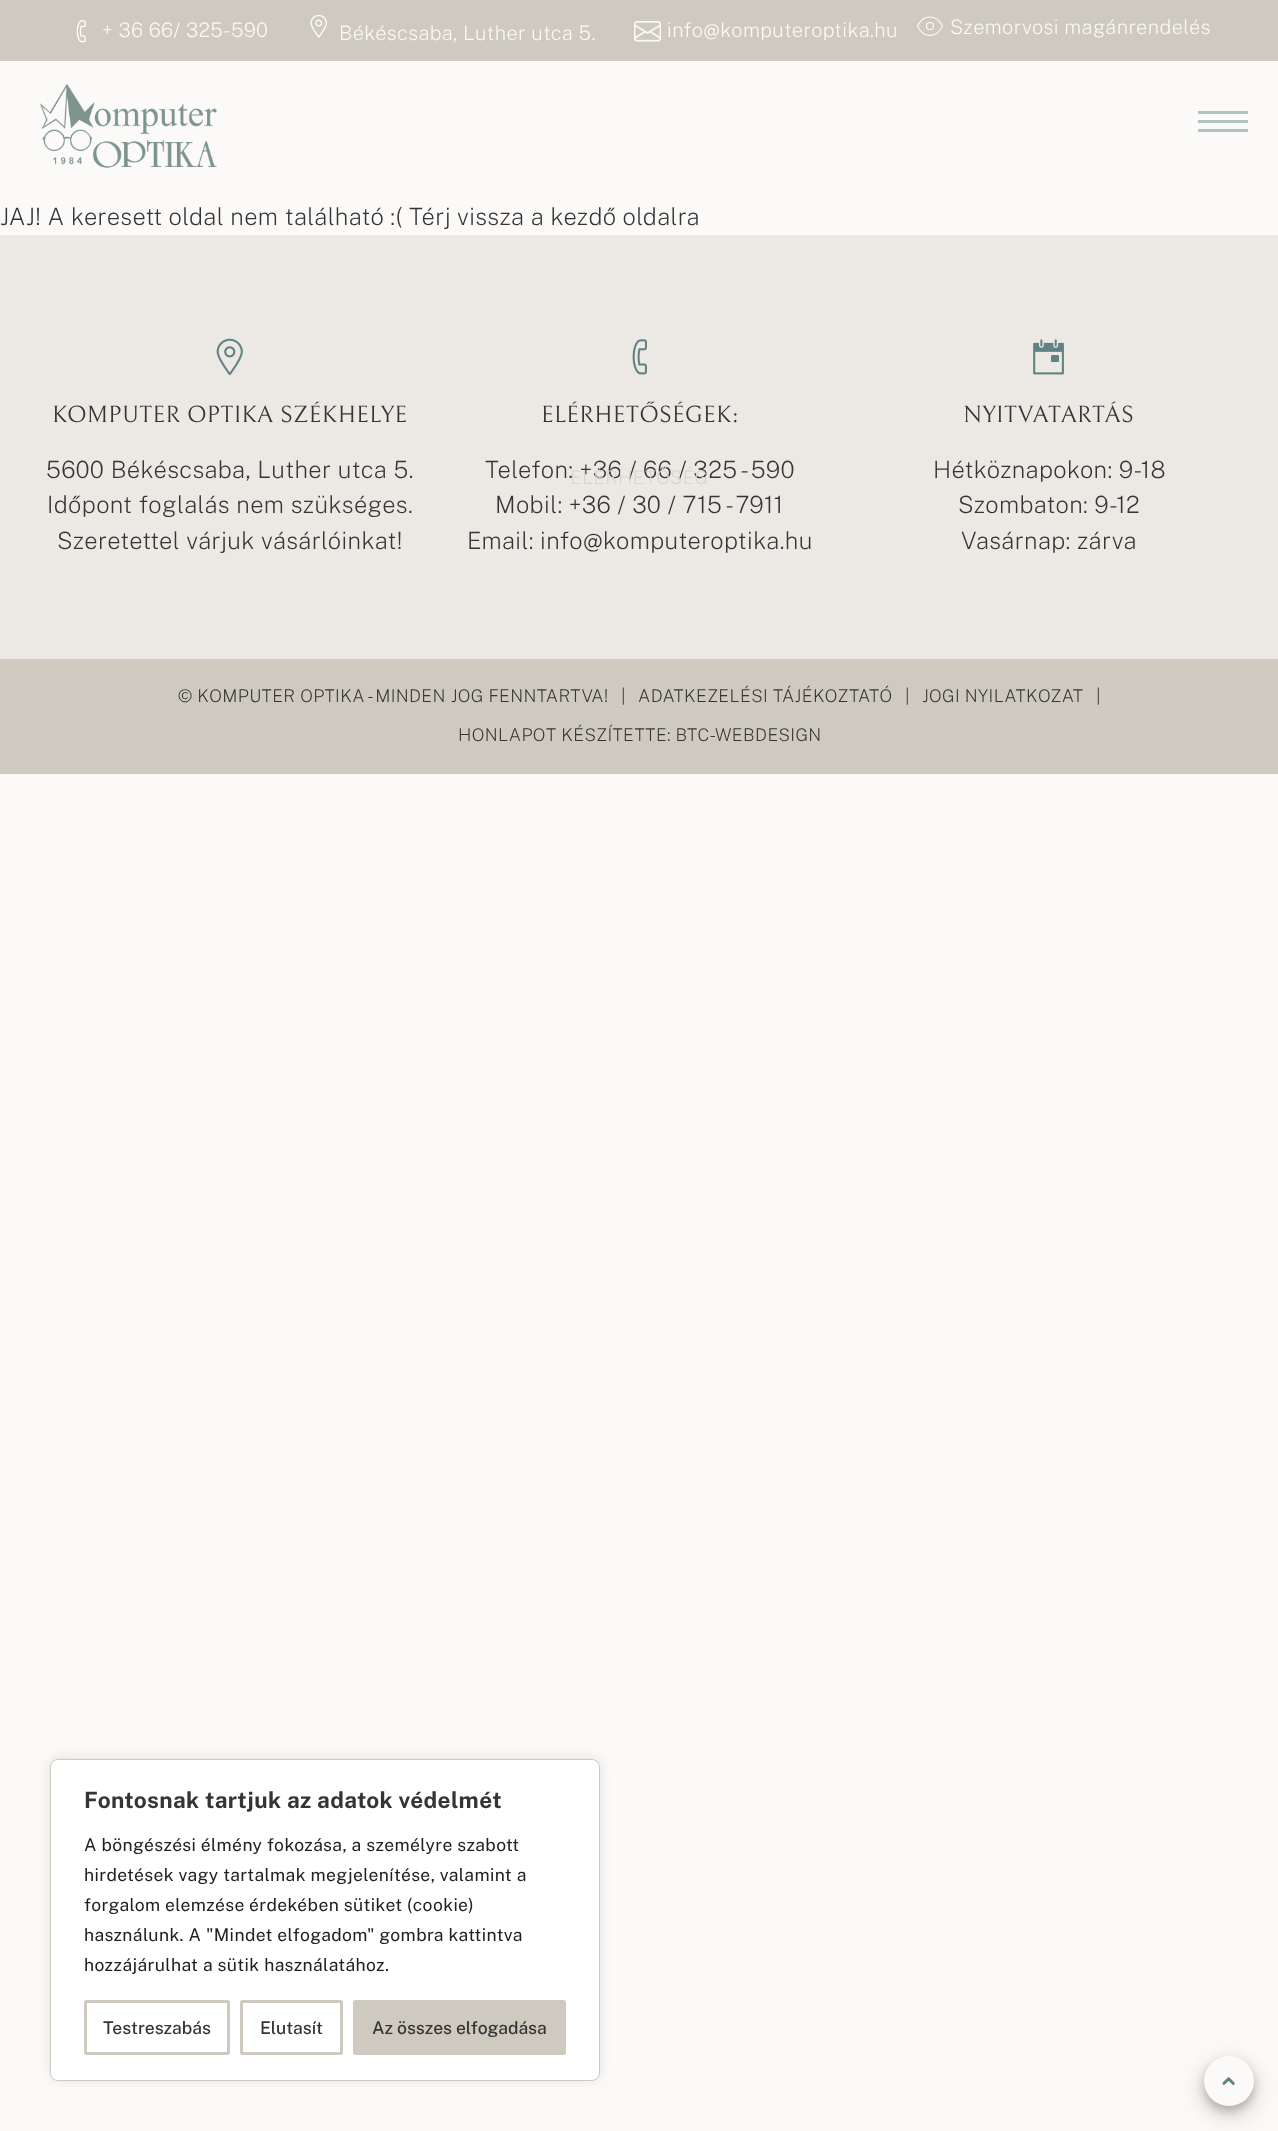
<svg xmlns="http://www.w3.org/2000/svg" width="1278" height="2131">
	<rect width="100%" height="100%" fill="#FBFAF9" />
	<rect x="0" y="0" width="1278" height="61" fill="#CFCABF" />
	<image x="76" y="20" width="10" height="23" href="assets/img1.png" />
	<text x="102" y="37" font-family="Public Sans" font-size="20" font-weight="200" letter-spacing="0.38" fill="#FBFAF9">+ 36 66/ 325-590</text>
	<image x="310" y="14" width="17" height="24" href="assets/img2.png" />
	<text x="339" y="40" font-family="Public Sans" font-size="20" font-weight="200" letter-spacing="0.38" fill="#FBFAF9">Békéscsaba, Luther utca 5.</text>
	<image x="634" y="21" width="27" height="21" href="assets/img3.png" />
	<text x="667" y="37" font-family="Public Sans" font-size="20" font-weight="200" letter-spacing="0.38" fill="#FBFAF9">info@komputeroptika.hu</text>
	<path d="M917.5 26C923.5 14 936.5 14 942.5 26C936.5 38.5 923.5 38.5 917.5 26Z" fill="none" stroke="#FBFAF9" stroke-width="1.1" />
	<circle cx="930" cy="26" r="3.5" fill="none" stroke="#FBFAF9" stroke-width="1.1" />
	<text x="950" y="34" font-family="Public Sans" font-size="20" font-weight="200" letter-spacing="0.38" fill="#FBFAF9">Szemorvosi magánrendelés</text>
	<image x="40" y="83" width="177" height="85" href="assets/img4.png" />
	<rect x="1198" y="111" width="50" height="3" fill="#ABC6C1" />
	<rect x="1198" y="120" width="50" height="3" fill="#ABC6C1" />
	<rect x="1198" y="129" width="50" height="3" fill="#ABC6C1" />
	<rect x="0" y="235" width="1278" height="424" fill="#ECE8E3" />
	<text x="485" y="478" font-family="Public Sans" font-size="23.75" font-weight="200" letter-spacing="0.38" fill="#353535">Telefon: +36 / 66 / 325 - 590</text>
	<text x="570" y="484" font-family="Public Sans" font-size="18.75" font-weight="200" letter-spacing="0.38" fill="#D8D4D0">ELÉRHETŐSÉG</text>
	<text x="0" y="225" font-family="Public Sans" font-size="23.75" font-weight="200" letter-spacing="0.38" fill="#353535">JAJ! A keresett oldal nem található :( Térj vissza a kezdő oldalra</text>
	<image x="216" y="338" width="27" height="38" href="assets/img5.png" />
	<text x="52" y="422" font-family="Bellefair" font-size="23.75" letter-spacing="0.38" fill="#353535">KOMPUTER OPTIKA SZÉKHELYE</text>
	<g font-family="Public Sans" font-size="23.75" font-weight="200" letter-spacing="0.38" fill="#353535">
		<text x="46" y="478">5600 Békéscsaba, Luther utca 5.</text>
		<text x="47" y="513">Időpont foglalás nem szükséges.</text>
		<text x="57" y="549">Szeretettel várjuk vásárlóinkat!</text>
	</g>
	<image x="632" y="339" width="15" height="36" href="assets/img6.png" />
	<text x="541" y="422" font-family="Bellefair" font-size="23.75" letter-spacing="0.38" fill="#353535">ELÉRHETŐSÉGEK:</text>
	<g font-family="Public Sans" font-size="23.75" font-weight="200" letter-spacing="0.38" fill="#353535">
		<text x="495" y="513">Mobil: +36 / 30 / 715 - 7911</text>
		<text x="467" y="549">Email: info@komputeroptika.hu</text>
	</g>
	<image x="1033" y="339" width="31" height="36" href="assets/img7.png" />
	<text x="963" y="422" font-family="Bellefair" font-size="23.75" letter-spacing="0.38" fill="#353535">NYITVATARTÁS</text>
	<g font-family="Public Sans" font-size="23.75" font-weight="200" letter-spacing="0.38" fill="#353535">
		<text x="933" y="478">Hétköznapokon: 9-18</text>
		<text x="958" y="513">Szombaton: 9-12</text>
		<text x="961" y="549">Vasárnap: zárva</text>
	</g>
	<rect x="0" y="659" width="1278" height="115" fill="#CFCABF" />
	<g font-family="Public Sans" font-size="17.5" font-weight="200" letter-spacing="0.38" fill="#353535">
		<text x="178" y="702">© KOMPUTER OPTIKA - MINDEN JOG FENNTARTVA!</text>
		<text x="621" y="702">|</text>
		<text x="638" y="702">ADATKEZELÉSI TÁJÉKOZTATÓ</text>
		<text x="905" y="702">|</text>
		<text x="922" y="702">JOGI NYILATKOZAT</text>
		<text x="1096" y="702">|</text>
		<text x="458" y="741">HONLAPOT KÉSZÍTETTE: BTC-WEBDESIGN</text>
	</g>
	<rect x="50" y="1758" width="550" height="322" rx="8" fill="#ACABAB" fill-opacity="0.3" filter="blur(6px)" />
	<rect x="50.5" y="1759.5" width="549" height="321" rx="7.5" fill="#FFFFFF" stroke="#CFCABF" />
	<text x="84" y="1808" font-family="Public Sans" font-size="22.5" font-weight="700" letter-spacing="0.38" fill="#353535">Fontosnak tartjuk az adatok védelmét</text>
	<g font-family="Public Sans" font-size="17.5" letter-spacing="0.38" fill="#212121">
		<text x="84" y="1851">A böngészési élmény fokozása, a személyre szabott</text>
		<text x="84" y="1881">hirdetések vagy tartalmak megjelenítése, valamint a</text>
		<text x="84" y="1911">forgalom elemzése érdekében sütiket (cookie)</text>
		<text x="84" y="1941">használunk. A "Mindet elfogadom" gombra kattintva</text>
		<text x="84" y="1971">hozzájárulhat a sütik használatához.</text>
	</g>
	<rect x="85.5" y="2001.5" width="143" height="52" rx="1" fill="none" stroke="#CFCABF" stroke-width="3" />
	<text x="103" y="2034" font-family="Public Sans" font-size="17.5" font-weight="500" fill="#353535">Testreszabás</text>
	<rect x="241.5" y="2001.5" width="100" height="52" rx="1" fill="none" stroke="#CFCABF" stroke-width="3" />
	<text x="260" y="2034" font-family="Public Sans" font-size="17.5" font-weight="500" fill="#353535">Elutasít</text>
	<rect x="354.5" y="2001.5" width="210" height="52" rx="1" fill="#CFCABF" stroke="#CFCABF" stroke-width="3" />
	<text x="372" y="2034" font-family="Public Sans" font-size="17.5" font-weight="500" fill="#353535">Az összes elfogadása</text>
	<rect x="1204" y="2064" width="50" height="50" rx="25" fill="#000000" fill-opacity="0.19" filter="blur(12.5px)" />
	<rect x="1204" y="2061" width="50" height="50" rx="25" fill="#000000" fill-opacity="0.2" filter="blur(5px)" />
	<circle cx="1229" cy="2081" r="25" fill="#FBFAF9" />
	<image x="1222" y="2077" width="13" height="9" href="assets/img8.png" />
</svg>
